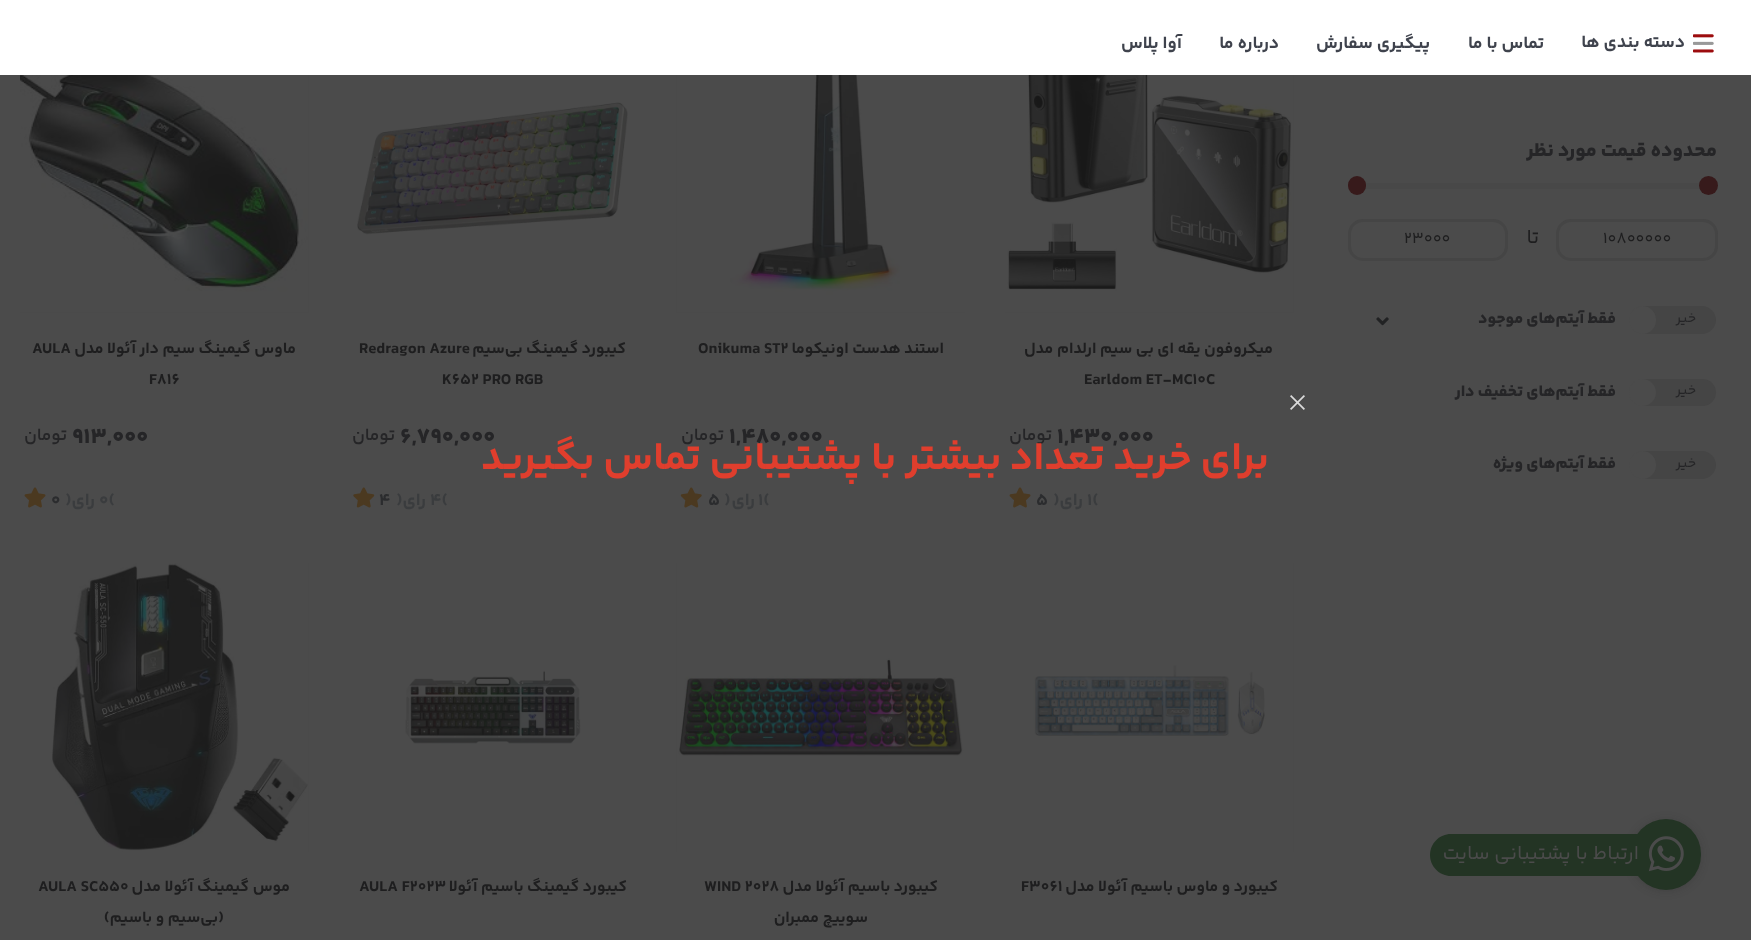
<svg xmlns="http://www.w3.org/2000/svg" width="1751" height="940">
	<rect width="100%" height="100%" fill="#4B4B4B" />
	<rect x="0" y="0" width="1751" height="75" fill="#FFFFFF" />
	<image x="1693" y="34" width="21" height="19" href="assets/img1.png" />
	<g font-family="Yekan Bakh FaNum" font-size="17.5" font-weight="700" direction="rtl" fill="#3F434D">
		<text x="1685" y="47">دسته بندی ها</text>
		<text x="1544" y="48">تماس با ما</text>
		<text x="1430" y="48">پیگیری سفارش</text>
		<text x="1279" y="48">درباره ما</text>
		<text x="1182" y="48">آوا پلاس</text>
	</g>
	<text x="1717" y="156" font-family="Yekan Bakh FaNum" font-size="20" font-weight="800" direction="rtl" fill="#252527">محدوده قیمت مورد نظر</text>
	<rect x="1360" y="183" width="340" height="6" fill="#484848" />
	<circle cx="1708.5" cy="185.5" r="9.5" fill="#371A1B" />
	<rect x="1348" y="176" width="18" height="19" rx="9" fill="#371A1B" />
	<rect x="1557.5" y="220.5" width="159" height="39" rx="13.5" fill="none" stroke="#454545" stroke-width="3" />
	<text x="1603" y="243" font-family="Yekan Bakh FaNum" font-size="16.25" fill="#1E1E1F">10800000</text>
	<text x="1539" y="243" font-family="Yekan Bakh FaNum" font-size="20" direction="rtl" fill="#1E1E1F">تا</text>
	<rect x="1349.5" y="220.5" width="157" height="39" rx="13.5" fill="none" stroke="#454545" stroke-width="3" />
	<text x="1404" y="243" font-family="Yekan Bakh FaNum" font-size="16.25" fill="#1E1E1F">23000</text>
	<path d="M1643 306H1702C1709.5 306 1716 312.5 1716 320C1716 327.5 1709.5 334 1702 334H1643Z" fill="#454545" />
	<text x="1696" y="322" font-family="Yekan Bakh FaNum" font-size="14" direction="rtl" fill="#252527">خیر</text>
	<path d="M1643 306H1642.5C1650 306 1656 312 1656 319.5V320.5C1656 328 1650 334 1642.5 334H1643C1635.5 334 1629 327.5 1629 320C1629 312.5 1635.5 306 1643 306Z" fill="#4B4B4B" />
	<text x="1616" y="323" font-family="Yekan Bakh FaNum" font-size="16.25" font-weight="800" direction="rtl" fill="#252527">فقط آیتم‌های موجود</text>
	<image x="1376" y="317" width="13" height="9" href="assets/img2.png" />
	<path d="M1643 379H1702.5C1710 379 1716 385 1716 392.5C1716 400 1710 406 1702.5 406H1643Z" fill="#454545" />
	<text x="1696" y="394" font-family="Yekan Bakh FaNum" font-size="14" direction="rtl" fill="#252527">خیر</text>
	<circle cx="1642.5" cy="392.5" r="13.5" fill="#4B4B4B" />
	<text x="1616" y="396" font-family="Yekan Bakh FaNum" font-size="16.25" font-weight="800" direction="rtl" fill="#252527">فقط آیتم‌های تخفیف دار</text>
	<path d="M1643 451H1702C1709.5 451 1716 457.5 1716 465C1716 472.5 1709.5 479 1702 479H1643Z" fill="#454545" />
	<text x="1696" y="467" font-family="Yekan Bakh FaNum" font-size="14" direction="rtl" fill="#252527">خیر</text>
	<path d="M1643 451H1642.5C1650 451 1656 457 1656 464.5V465.5C1656 473 1650 479 1642.5 479H1643C1635.5 479 1629 472.5 1629 465C1629 457.5 1635.5 451 1643 451Z" fill="#4B4B4B" />
	<text x="1616" y="468" font-family="Yekan Bakh FaNum" font-size="16.25" font-weight="800" direction="rtl" fill="#252527">فقط آیتم‌های ویژه</text>
	<image x="1005" y="75" width="289" height="238" href="assets/img3.png" />
	<text x="1273" y="353" font-family="Yekan Bakh FaNum" font-size="16" font-weight="700" direction="rtl" fill="#1E1E1F">میکروفون یقه ای بی سیم ارلدام مدل</text>
	<text x="1084" y="384" font-family="Yekan Bakh FaNum" font-size="16" font-weight="700" fill="#1E1E1F">Earldom ET-MC10C</text>
	<text x="1057" y="443" font-family="Yekan Bakh FaNum" font-size="22.5" font-weight="800" fill="#252527">1,430,000</text>
	<text x="1052" y="440" font-family="Yekan Bakh FaNum" font-size="17.5" font-weight="600" direction="rtl" fill="#252527">تومان</text>
	<text x="1087" y="505" font-family="Yekan Bakh FaNum" font-size="17.5" font-weight="700" fill="#3A3C3E">1(</text>
	<text x="1083" y="505" font-family="Yekan Bakh FaNum" font-size="17.5" font-weight="700" direction="rtl" fill="#3A3C3E">رای</text>
	<text x="1053" y="505" font-family="Yekan Bakh FaNum" font-size="17.5" font-weight="700" fill="#3A3C3E">)</text>
	<text x="1036" y="505" font-family="Yekan Bakh FaNum" font-size="17.5" font-weight="700" fill="#2B2C2E">5</text>
	<image x="1009" y="487" width="22" height="21" href="assets/img4.png" />
	<image x="676" y="75" width="289" height="238" href="assets/img5.png" />
	<text x="944" y="353" font-family="Yekan Bakh FaNum" font-size="16" font-weight="700" direction="rtl" fill="#1E1E1F">استند هدست اونیکوما</text>
	<text x="698" y="353" font-family="Yekan Bakh FaNum" font-size="16" font-weight="700" fill="#1E1E1F">Onikuma ST2</text>
	<text x="729" y="443" font-family="Yekan Bakh FaNum" font-size="22.5" font-weight="800" fill="#252527">1,480,000</text>
	<text x="724" y="440" font-family="Yekan Bakh FaNum" font-size="17.5" font-weight="600" direction="rtl" fill="#252527">تومان</text>
	<text x="758" y="505" font-family="Yekan Bakh FaNum" font-size="17.5" font-weight="700" fill="#3A3C3E">1(</text>
	<text x="755" y="505" font-family="Yekan Bakh FaNum" font-size="17.5" font-weight="700" direction="rtl" fill="#3A3C3E">رای</text>
	<text x="724" y="505" font-family="Yekan Bakh FaNum" font-size="17.5" font-weight="700" fill="#3A3C3E">)</text>
	<text x="708" y="505" font-family="Yekan Bakh FaNum" font-size="17.5" font-weight="700" fill="#2B2C2E">5</text>
	<image x="680" y="487" width="22" height="21" href="assets/img6.png" />
	<image x="357" y="102" width="271" height="133" href="assets/img7.png" />
	<text x="626" y="353" font-family="Yekan Bakh FaNum" font-size="16" font-weight="700" direction="rtl" fill="#1E1E1F">کیبورد گیمینگ بی‌سیم</text>
	<g font-family="Yekan Bakh FaNum" font-size="16" font-weight="700" fill="#1E1E1F">
		<text x="359" y="353">Redragon Azure</text>
		<text x="442" y="384">K652 PRO RGB</text>
	</g>
	<text x="400" y="443" font-family="Yekan Bakh FaNum" font-size="22.5" font-weight="800" fill="#252527">6,790,000</text>
	<text x="395" y="440" font-family="Yekan Bakh FaNum" font-size="17.5" font-weight="600" direction="rtl" fill="#252527">تومان</text>
	<text x="430" y="505" font-family="Yekan Bakh FaNum" font-size="17.5" font-weight="700" fill="#3A3C3E">4(</text>
	<text x="426" y="505" font-family="Yekan Bakh FaNum" font-size="17.5" font-weight="700" direction="rtl" fill="#3A3C3E">رای</text>
	<text x="396" y="505" font-family="Yekan Bakh FaNum" font-size="17.5" font-weight="700" fill="#3A3C3E">)</text>
	<text x="379" y="505" font-family="Yekan Bakh FaNum" font-size="17.5" font-weight="700" fill="#2B2C2E">4</text>
	<image x="353" y="487" width="22" height="21" href="assets/img8.png" />
	<image x="20" y="75" width="289" height="238" href="assets/img9.png" />
	<text x="296" y="353" font-family="Yekan Bakh FaNum" font-size="16" font-weight="700" direction="rtl" fill="#1E1E1F">ماوس گیمینگ سیم دار آئولا مدل</text>
	<g font-family="Yekan Bakh FaNum" font-size="16" font-weight="700" fill="#1E1E1F">
		<text x="32" y="353">AULA</text>
		<text x="149" y="384">F816</text>
	</g>
	<text x="72" y="443" font-family="Yekan Bakh FaNum" font-size="22.5" font-weight="800" fill="#252527">913,000</text>
	<text x="67" y="440" font-family="Yekan Bakh FaNum" font-size="17.5" font-weight="600" direction="rtl" fill="#252527">تومان</text>
	<text x="99" y="505" font-family="Yekan Bakh FaNum" font-size="17.5" font-weight="700" fill="#3A3C3E">0(</text>
	<text x="95" y="505" font-family="Yekan Bakh FaNum" font-size="17.5" font-weight="700" direction="rtl" fill="#3A3C3E">رای</text>
	<text x="65" y="505" font-family="Yekan Bakh FaNum" font-size="17.5" font-weight="700" fill="#3A3C3E">)</text>
	<text x="51" y="505" font-family="Yekan Bakh FaNum" font-size="17.5" font-weight="700" fill="#2B2C2E">0</text>
	<image x="24" y="487" width="22" height="21" href="assets/img4.png" />
	<image x="1005" y="563" width="289" height="289" href="assets/img10.png" />
	<text x="1278" y="891" font-family="Yekan Bakh FaNum" font-size="16" font-weight="700" direction="rtl" fill="#1E1E1F">کیبورد و ماوس باسیم آئولا مدل</text>
	<text x="1021" y="891" font-family="Yekan Bakh FaNum" font-size="16" font-weight="700" fill="#1E1E1F">F3061</text>
	<image x="676" y="563" width="289" height="289" href="assets/img11.png" />
	<text x="938" y="891" font-family="Yekan Bakh FaNum" font-size="16" font-weight="700" direction="rtl" fill="#1E1E1F">کیبورد باسیم آئولا مدل</text>
	<text x="704" y="891" font-family="Yekan Bakh FaNum" font-size="16" font-weight="700" fill="#1E1E1F">WIND 2028</text>
	<text x="868" y="922" font-family="Yekan Bakh FaNum" font-size="16" font-weight="700" direction="rtl" fill="#1E1E1F">سوییچ ممبران</text>
	<image x="349" y="563" width="287" height="289" href="assets/img12.png" />
	<text x="627" y="891" font-family="Yekan Bakh FaNum" font-size="16" font-weight="700" direction="rtl" fill="#1E1E1F">کیبورد گیمینگ باسیم آئولا</text>
	<text x="359" y="891" font-family="Yekan Bakh FaNum" font-size="16" font-weight="700" fill="#1E1E1F">AULA F2023</text>
	<image x="20" y="563" width="289" height="289" href="assets/img13.png" />
	<text x="290" y="891" font-family="Yekan Bakh FaNum" font-size="16" font-weight="700" direction="rtl" fill="#1E1E1F">موس گیمینگ آئولا مدل</text>
	<text x="38" y="891" font-family="Yekan Bakh FaNum" font-size="16" font-weight="700" fill="#1E1E1F">AULA SC550</text>
	<text x="224" y="922" font-family="Yekan Bakh FaNum" font-size="16" font-weight="700" direction="rtl" fill="#1E1E1F">(بی‌سیم و باسیم)</text>
	<image x="1290" y="395" width="15" height="15" href="assets/img14.png" />
	<text x="1269" y="469" font-family="Yekan Bakh FaNum" font-size="40" font-weight="700" direction="rtl" fill="#E03E2D">برای خرید تعداد بیشتر با پشتیبانی تماس بگیرید</text>
	<rect x="1631" y="820" width="70" height="71" rx="35" fill="#181818" fill-opacity="0.2" filter="blur(4px)" />
	<rect x="1631" y="819" width="70" height="71" rx="35" fill="#233424" />
	<image x="1648" y="836" width="36" height="36" href="assets/img15.png" />
	<path d="M1451 834H1639V876H1451C1439.5 876 1430 866.5 1430 855C1430 843.5 1439.5 834 1451 834Z" fill="#233424" />
	<text x="1639" y="859" font-family="Yekan Bakh FaNum" font-size="20" direction="rtl" fill="#4B4B4B">ارتباط با پشتیبانی سایت</text>
</svg>
